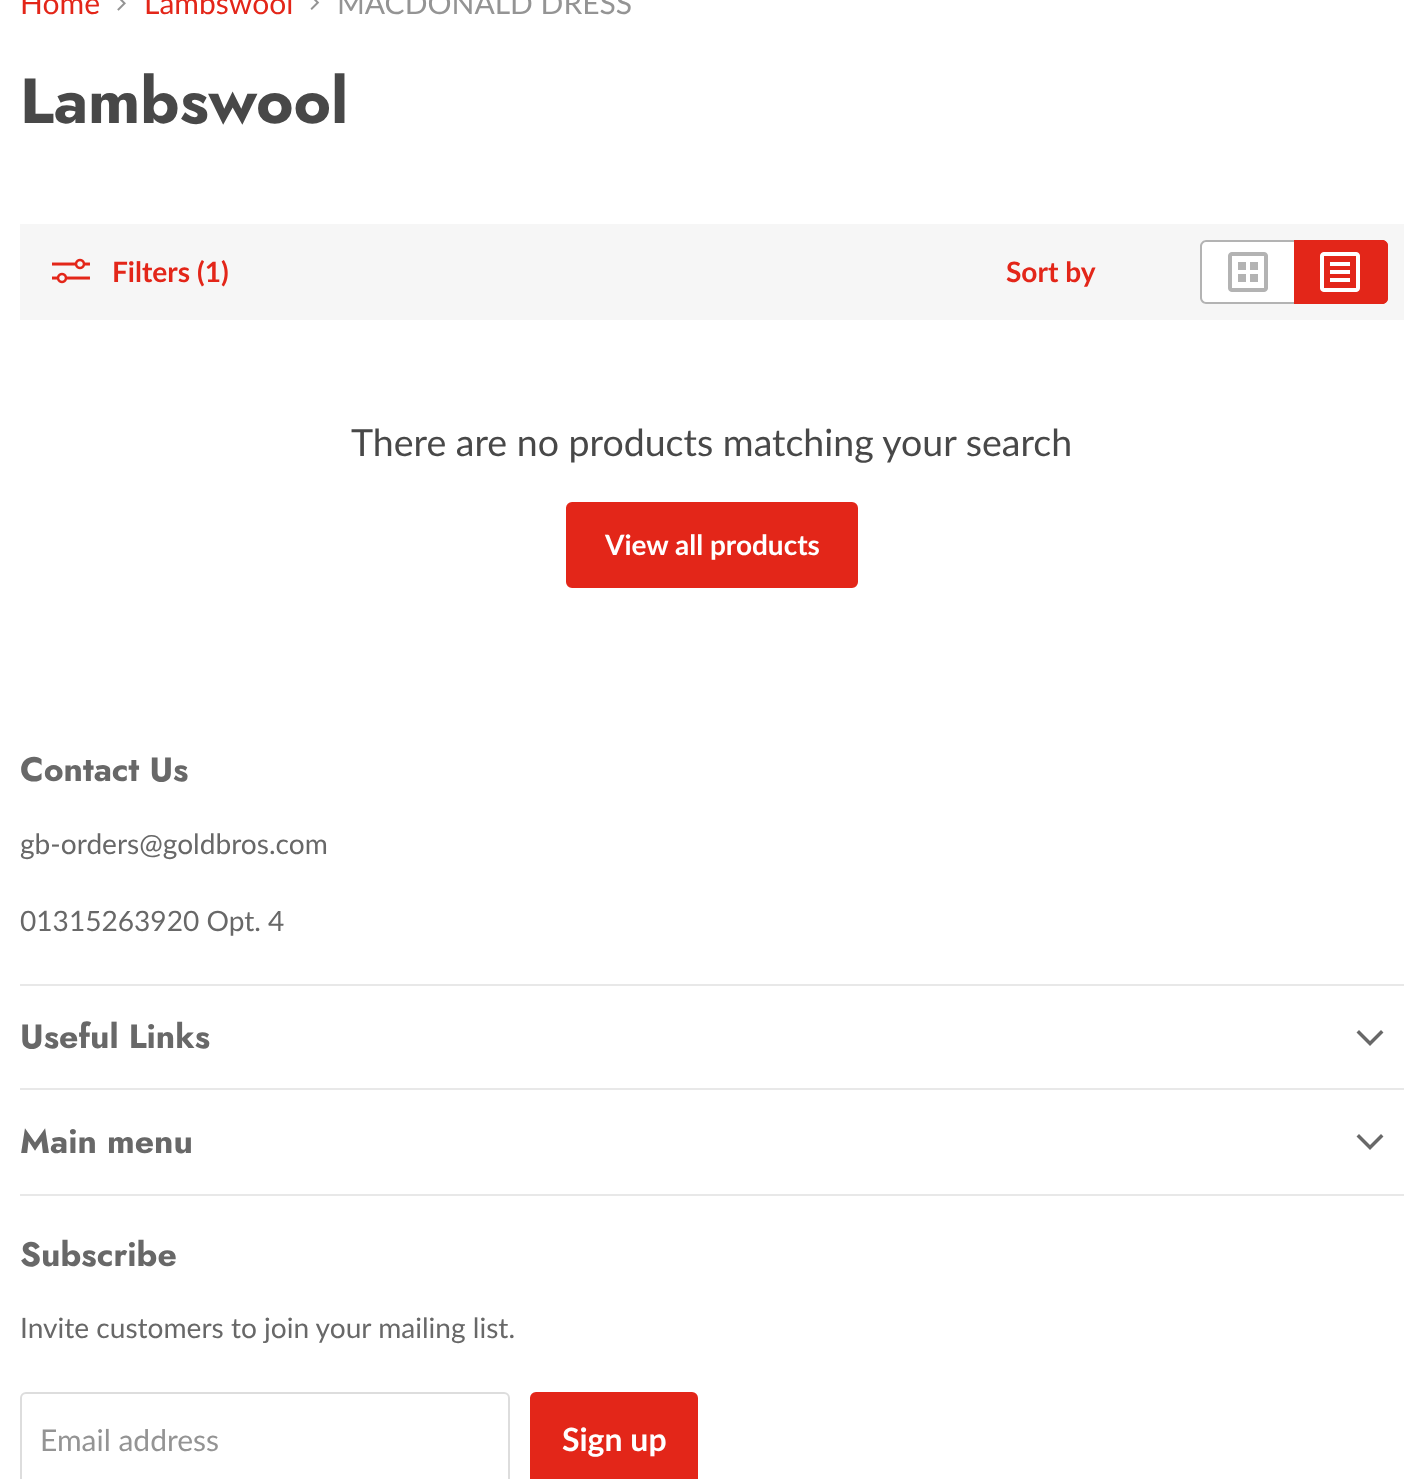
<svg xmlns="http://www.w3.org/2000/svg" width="1424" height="1479">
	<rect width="100%" height="100%" fill="#FFFFFF" />
	<text x="20" y="14" font-family="Lato" font-size="30" fill="#E32619">Home</text>
	<image x="117" y="0" width="9" height="11" href="assets/img1.png" />
	<text x="144" y="14" font-family="Lato" font-size="30" fill="#E32619">Lambswool</text>
	<image x="310" y="0" width="10" height="10" href="assets/img2.png" />
	<text x="337" y="14" font-family="Lato" font-size="30" fill="#949494">MACDONALD DRESS</text>
	<text x="20" y="123" font-family="Jost" font-size="63.75" font-weight="700" fill="#484848">Lambswool</text>
	<rect x="20" y="224" width="1384" height="96" fill="#F6F6F6" />
	<image x="52" y="258" width="38" height="26" href="assets/img3.png" />
	<g font-family="Lato" font-size="28.1" font-weight="700" fill="#E32619">
		<text x="112" y="282">Filters (1)</text>
		<text x="1006" y="282">Sort by</text>
	</g>
	<path d="M1206 240H1294V304H1206C1202.5 304 1200 301.5 1200 298V246C1200 242.5 1202.5 240 1206 240Z" fill="#FFFFFF" />
	<path d="M1206 240H1294V304H1206C1203 304 1200 301 1200 298V246C1200 243 1203 240 1206 240ZM1206 242H1294V302H1206C1204 302 1202 300 1202 298V246C1202 244 1204 242 1206 242Z" fill="#B3B3B3" fill-rule="evenodd" />
	<image x="1228" y="252" width="40" height="40" href="assets/img4.png" />
	<path d="M1294 240H1382C1385.5 240 1388 242.5 1388 246V298C1388 301.5 1385.5 304 1382 304H1294Z" fill="#E32619" />
	<path d="M1294 240H1382C1385 240 1388 243 1388 246V298C1388 301 1385 304 1382 304H1294ZM1294 242H1382C1384 242 1386 244 1386 246V298C1386 300 1384 302 1382 302H1294Z" fill="#E32619" fill-rule="evenodd" />
	<image x="1320" y="252" width="40" height="40" href="assets/img5.png" />
	<text x="351" y="456" font-family="Lato" font-size="37.5" fill="#484848">There are no products matching your search</text>
	<rect x="567" y="503" width="290" height="84" rx="5" fill="#E32619" stroke="#E32619" stroke-width="2" />
	<text x="605" y="555" font-family="Lato" font-size="28" font-weight="700" fill="#FFFFFF">View all products</text>
	<rect x="20" y="984" width="1384" height="2" fill="#E8E8E8" />
	<text x="20" y="781" font-family="Jost" font-size="33.75" font-weight="700" fill="#686868">Contact Us</text>
	<g font-family="Lato" font-size="28.1" fill="#686868">
		<text x="20" y="854">gb-orders@goldbros.com</text>
		<text x="20" y="931">01315263920 Opt. 4</text>
	</g>
	<rect x="20" y="1088" width="1384" height="2" fill="#E8E8E8" />
	<text x="20" y="1048" font-family="Jost" font-size="33.75" font-weight="700" fill="#686868">Useful Links</text>
	<path d="M1370 1043.5L1381 1032.5M1370 1043.5L1359 1032.5" fill="none" stroke="#686868" stroke-width="3.5" stroke-linecap="square" />
	<rect x="20" y="1194" width="1384" height="2" fill="#E8E8E8" />
	<text x="20" y="1153" font-family="Jost" font-size="33.75" font-weight="700" fill="#686868">Main menu</text>
	<path d="M1370 1147.5L1381 1136.5M1370 1147.5L1359 1136.5" fill="none" stroke="#686868" stroke-width="3.5" stroke-linecap="square" />
	<text x="20" y="1266" font-family="Jost" font-size="33.75" font-weight="700" fill="#686868">Subscribe</text>
	<text x="20" y="1338" font-family="Lato" font-size="28.1" fill="#686868">Invite customers to join your mailing list.</text>
	<rect x="21" y="1393" width="488" height="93" rx="5" fill="none" stroke="#DDDDDD" stroke-width="2" />
	<text x="40" y="1451" font-family="Lato" font-size="30" fill="#949494">Email address</text>
	<rect x="531" y="1393" width="166" height="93" rx="5" fill="#E32619" stroke="#E32619" stroke-width="2" />
	<text x="562" y="1451" font-family="Lato" font-size="32" font-weight="700" fill="#FFFFFF">Sign up</text>
</svg>
